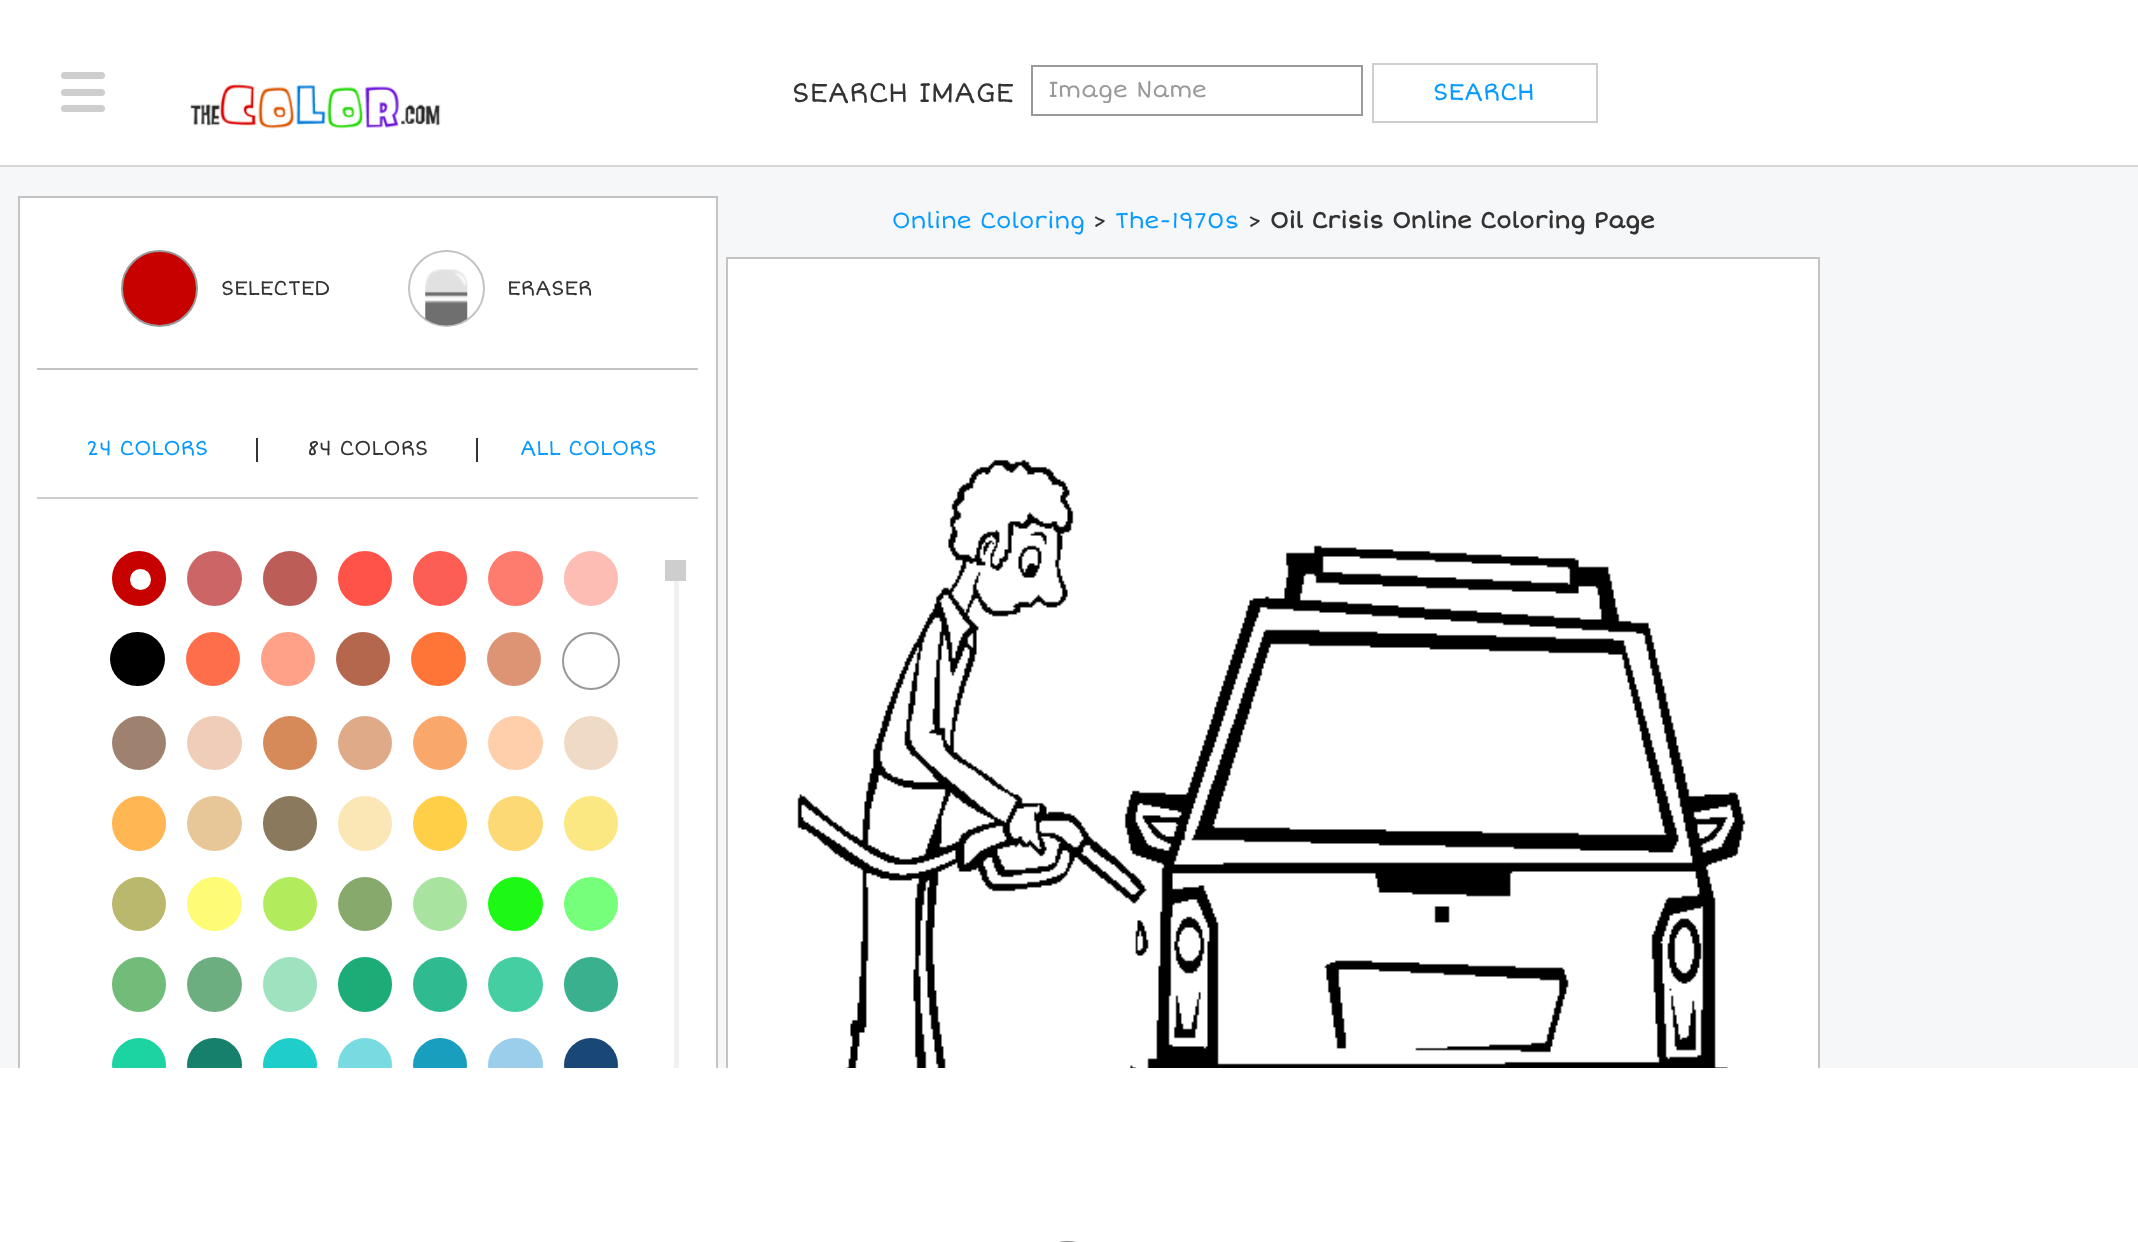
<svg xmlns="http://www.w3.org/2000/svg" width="2138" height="1242">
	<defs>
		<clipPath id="clip1"><rect x="1048" y="75" width="291" height="28" /></clipPath>
	</defs>
	<rect width="100%" height="100%" fill="#F6F7F9" />
	<rect x="0" y="0" width="2138" height="165" fill="#FFFFFF" />
	<rect x="0" y="165" width="2138" height="2" fill="#D7D7D7" />
	<rect x="61" y="72" width="44" height="7" rx="3.5" fill="#CECECE" />
	<rect x="61" y="89" width="44" height="7" rx="3.5" fill="#CECECE" />
	<rect x="61" y="105" width="44" height="7" rx="3.5" fill="#CECECE" />
	<image x="189" y="84" width="252" height="45" href="assets/img1.png" />
	<text x="792" y="102" font-family="Short Stack" font-size="28" fill="#333333">SEARCH IMAGE</text>
	<rect x="1032" y="66" width="330" height="49" fill="none" stroke="#999999" stroke-width="2" />
	<g clip-path="url(#clip1)">
		<text x="1048" y="97" font-family="Short Stack" font-size="22.75" fill="#999999">Image Name</text>
	</g>
	<rect x="1373" y="64" width="224" height="58" fill="none" stroke="#CECECE" stroke-width="2" />
	<text x="1433" y="100" font-family="Short Stack" font-size="24.5" fill="#099AFF">SEARCH</text>
	<text x="892" y="228" font-family="Short Stack" font-size="22.75" fill="#099AFF">Online Coloring</text>
	<text x="1093" y="228" font-family="Short Stack" font-size="22.75" fill="#333333">&gt;</text>
	<text x="1115" y="228" font-family="Short Stack" font-size="22.75" fill="#099AFF">The-1970s</text>
	<text x="1248" y="228" font-family="Short Stack" font-size="22.75" fill="#333333">&gt;</text>
	<text x="1270" y="228" font-family="Short Stack" font-size="22.75" font-weight="700" fill="#333333">Oil Crisis Online Coloring Page</text>
	<rect x="728" y="259" width="1090" height="809" fill="#FFFFFF" />
	<rect x="727" y="258" width="1092" height="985" fill="none" stroke="#C3C3C3" stroke-width="2" />
	<image x="797" y="459" width="949" height="609" href="assets/img2.png" />
	<rect x="20" y="198" width="696" height="870" fill="#FFFFFF" />
	<rect x="19" y="197" width="698" height="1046" fill="none" stroke="#C3C3C3" stroke-width="2" />
	<rect x="37" y="368" width="661" height="2" fill="#C3C3C3" />
	<circle cx="159.5" cy="288.5" r="37.5" fill="#C70000" stroke="#999999" stroke-width="2" />
	<text x="221" y="295" font-family="Short Stack" font-size="21" fill="#333333">SELECTED</text>
	<circle cx="446.5" cy="288.5" r="37.5" fill="none" stroke="#C3C3C3" stroke-width="2" />
	<image x="425" y="269" width="43" height="57" href="assets/img3.png" />
	<text x="507" y="295" font-family="Short Stack" font-size="21" fill="#333333">ERASER</text>
	<rect x="37" y="497" width="661" height="2" fill="#CECECE" />
	<text x="86" y="455" font-family="Short Stack" font-size="21" fill="#099AFF">24 COLORS</text>
	<rect x="256" y="438" width="2" height="24" fill="#333333" />
	<text x="307" y="455" font-family="Short Stack" font-size="21" fill="#333333">84 COLORS</text>
	<rect x="476" y="438" width="2" height="24" fill="#333333" />
	<text x="520" y="455" font-family="Short Stack" font-size="21" fill="#099AFF">ALL COLORS</text>
	<rect x="112" y="551" width="54" height="55" rx="27" fill="#C70000" />
	<circle cx="140.5" cy="579.5" r="10.5" fill="#FFFFFF" />
	<circle cx="214.5" cy="578.5" r="27.5" fill="#CC6666" />
	<rect x="263" y="551" width="54" height="55" rx="27" fill="#BC5D58" />
	<rect x="338" y="551" width="54" height="55" rx="27" fill="#FF5349" />
	<rect x="413" y="551" width="54" height="55" rx="27" fill="#FD5E53" />
	<circle cx="515.5" cy="578.5" r="27.5" fill="#FD7C6E" />
	<rect x="564" y="551" width="54" height="55" rx="27" fill="#FDBCB4" />
	<rect x="110" y="632" width="55" height="54" rx="27" fill="#000000" />
	<circle cx="213" cy="659" r="27" fill="#FF6E4A" />
	<circle cx="288" cy="659" r="27" fill="#FFA089" />
	<circle cx="363" cy="659" r="27" fill="#B4674D" />
	<rect x="411" y="632" width="55" height="54" rx="27" fill="#FF7538" />
	<circle cx="514" cy="659" r="27" fill="#DD9475" />
	<circle cx="591" cy="661" r="28" fill="none" stroke="#999999" stroke-width="2" />
	<circle cx="139" cy="743" r="27" fill="#9F8170" />
	<rect x="187" y="716" width="55" height="54" rx="27" fill="#EFCDB8" />
	<circle cx="290" cy="743" r="27" fill="#D68A59" />
	<circle cx="365" cy="743" r="27" fill="#DEAA88" />
	<circle cx="440" cy="743" r="27" fill="#FAA76C" />
	<rect x="488" y="716" width="55" height="54" rx="27" fill="#FFCFAB" />
	<circle cx="591" cy="743" r="27" fill="#EFDBC5" />
	<rect x="112" y="796" width="54" height="55" rx="27" fill="#FFB653" />
	<circle cx="214.5" cy="823.5" r="27.5" fill="#E7C697" />
	<rect x="263" y="796" width="54" height="55" rx="27" fill="#8A795D" />
	<rect x="338" y="796" width="54" height="55" rx="27" fill="#FAE7B5" />
	<rect x="413" y="796" width="54" height="55" rx="27" fill="#FFCF48" />
	<circle cx="515.5" cy="823.5" r="27.5" fill="#FCD975" />
	<rect x="564" y="796" width="54" height="55" rx="27" fill="#FCE883" />
	<circle cx="139" cy="904" r="27" fill="#BAB86C" />
	<rect x="187" y="877" width="55" height="54" rx="27" fill="#FDFC74" />
	<circle cx="290" cy="904" r="27" fill="#B2EC5D" />
	<circle cx="365" cy="904" r="27" fill="#87A96B" />
	<circle cx="440" cy="904" r="27" fill="#A8E4A0" />
	<rect x="488" y="877" width="55" height="54" rx="27" fill="#1DF914" />
	<circle cx="591" cy="904" r="27" fill="#76FF7A" />
	<rect x="112" y="957" width="54" height="55" rx="27" fill="#71BC78" />
	<circle cx="214.5" cy="984.5" r="27.5" fill="#6DAE81" />
	<rect x="263" y="957" width="54" height="55" rx="27" fill="#9FE2BF" />
	<rect x="338" y="957" width="54" height="55" rx="27" fill="#1CAC78" />
	<rect x="413" y="957" width="54" height="55" rx="27" fill="#30BA8F" />
	<circle cx="515.5" cy="984.5" r="27.5" fill="#45CEA2" />
	<rect x="564" y="957" width="54" height="55" rx="27" fill="#3BB08F" />
	<circle cx="139" cy="1065" r="27" fill="#1CD3A2" />
	<rect x="187" y="1038" width="55" height="54" rx="27" fill="#17806D" />
	<circle cx="290" cy="1065" r="27" fill="#1FCECB" />
	<circle cx="365" cy="1065" r="27" fill="#78DBE2" />
	<circle cx="440" cy="1065" r="27" fill="#199EBD" />
	<rect x="488" y="1038" width="55" height="54" rx="27" fill="#9ACEEB" />
	<circle cx="591" cy="1065" r="27" fill="#1A4876" />
	<rect x="674" y="581" width="5" height="487" fill="#F1F1F1" />
	<rect x="665" y="560" width="21" height="21" fill="#CECECE" />
	<rect x="0" y="1068" width="2138" height="174" fill="#FFFFFF" />
	<rect x="1049" y="1242" width="37" height="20" rx="18" fill="none" stroke="#F9F9F9" stroke-width="2" />
	<rect x="1049" y="1242" width="37" height="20" rx="18" fill="none" stroke="#888888" stroke-width="2" />
</svg>
